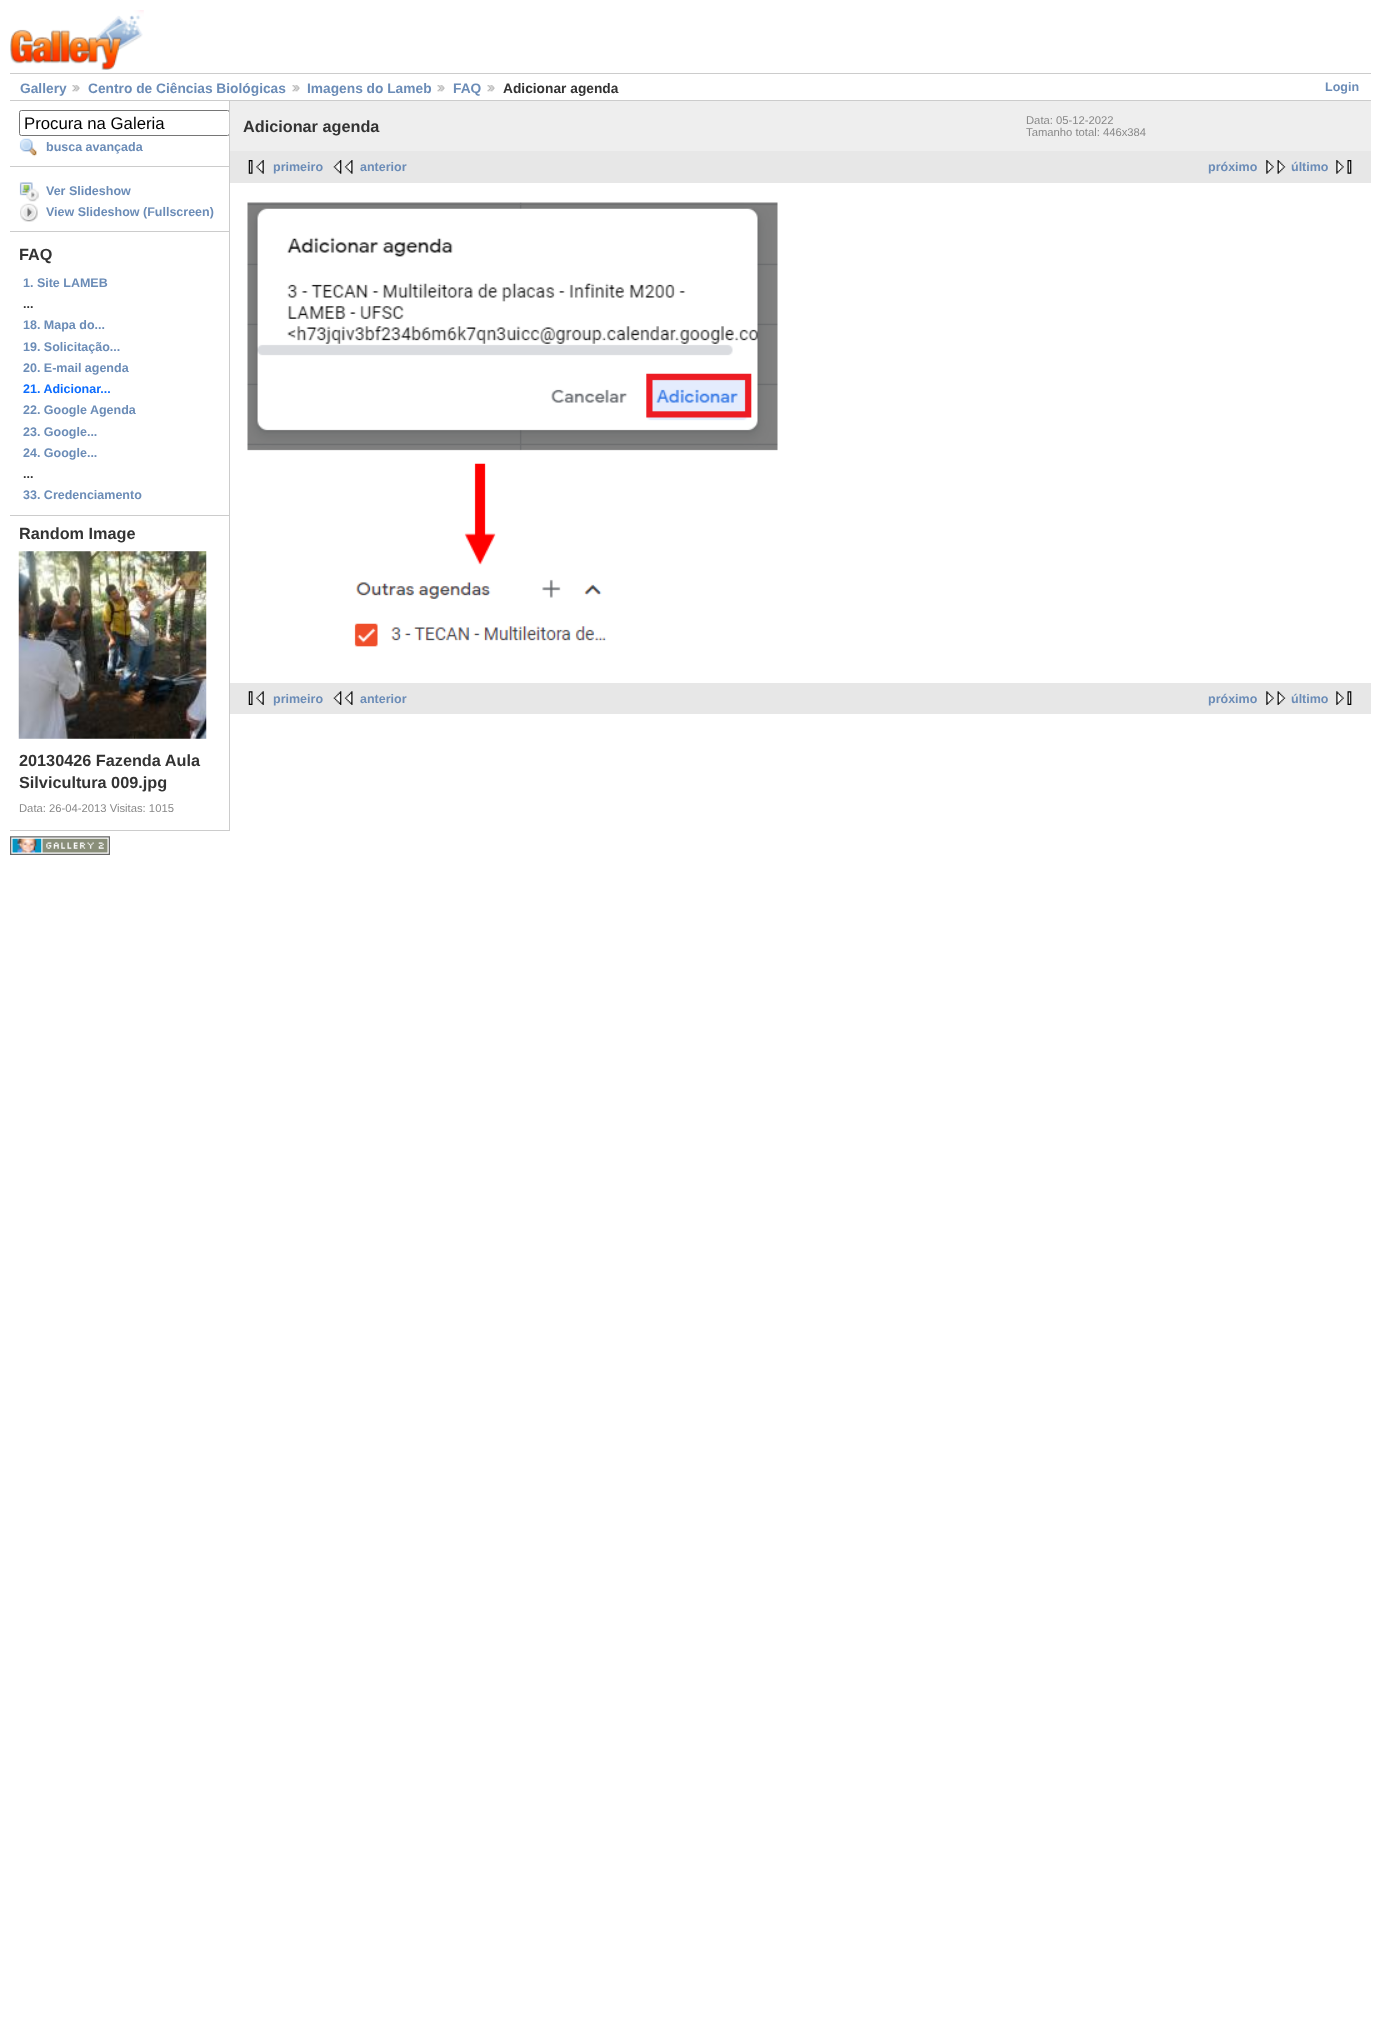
<svg xmlns="http://www.w3.org/2000/svg" width="1381" height="2017">
	<defs>
		<clipPath id="clip1"><rect x="10" y="101" width="219" height="730" /></clipPath>
	</defs>
	<rect width="100%" height="100%" fill="#FFFFFF" />
	<image x="10" y="10" width="134" height="60" href="assets/img1.png" />
	<rect x="10" y="73" width="1361" height="1" fill="#CCCCCC" />
	<rect x="10" y="100" width="1361" height="1" fill="#CCCCCC" />
	<text x="20" y="93" font-family="Liberation Sans" font-size="13.75" font-weight="700" fill="#6B8CB7">Gallery</text>
	<image x="72" y="85" width="8" height="7" href="assets/img2.png" />
	<text x="88" y="93" font-family="Liberation Sans" font-size="13.75" font-weight="700" fill="#6B8CB7">Centro de Ciências Biológicas</text>
	<image x="292" y="85" width="8" height="7" href="assets/img3.png" />
	<text x="307" y="93" font-family="Liberation Sans" font-size="13.75" font-weight="700" fill="#6B8CB7">Imagens do Lameb</text>
	<image x="437" y="85" width="8" height="7" href="assets/img3.png" />
	<text x="453" y="93" font-family="Liberation Sans" font-size="13.75" font-weight="700" fill="#6B8CB7">FAQ</text>
	<image x="487" y="85" width="8" height="7" href="assets/img3.png" />
	<text x="503" y="93" font-family="Liberation Sans" font-size="13.75" font-weight="700" fill="#333333">Adicionar agenda</text>
	<text x="1325" y="91" font-family="Liberation Sans" font-size="12.5" font-weight="700" fill="#6B8CB7">Login</text>
	<rect x="229" y="101" width="1" height="730" fill="#CCCCCC" />
	<rect x="10" y="166" width="219" height="1" fill="#CCCCCC" />
	<g clip-path="url(#clip1)">
		<rect x="19.5" y="110.5" width="210" height="25" rx="2" fill="none" stroke="#767676" />
	</g>
	<text x="24" y="129" font-family="Liberation Sans" font-size="16.75" fill="#000000">Procura na Galeria</text>
	<image x="19" y="138" width="18" height="19" href="assets/img4.png" />
	<text x="46" y="151" font-family="Liberation Sans" font-size="12.5" font-weight="700" fill="#6B8CB7">busca avançada</text>
	<rect x="10" y="231" width="219" height="1" fill="#CCCCCC" />
	<image x="19" y="182" width="20" height="20" href="assets/img5.png" />
	<text x="46" y="195" font-family="Liberation Sans" font-size="12.5" font-weight="700" fill="#6B8CB7">Ver Slideshow</text>
	<image x="20" y="203" width="18" height="19" href="assets/img6.png" />
	<text x="46" y="216" font-family="Liberation Sans" font-size="12.5" font-weight="700" fill="#6B8CB7">View Slideshow (Fullscreen)</text>
	<rect x="10" y="515" width="219" height="1" fill="#CCCCCC" />
	<text x="19" y="260" font-family="Liberation Sans" font-size="16.25" font-weight="700" fill="#333333">FAQ</text>
	<text x="23" y="287" font-family="Liberation Sans" font-size="12.5" font-weight="700" fill="#6B8CB7">1. Site LAMEB</text>
	<text x="23" y="308" font-family="Liberation Sans" font-size="12.5" font-weight="700" fill="#333333">...</text>
	<g font-family="Liberation Sans" font-size="12.5" font-weight="700" fill="#6B8CB7">
		<text x="23" y="329">18. Mapa do...</text>
		<text x="23" y="351">19. Solicitação...</text>
		<text x="23" y="372">20. E-mail agenda</text>
	</g>
	<text x="23" y="393" font-family="Liberation Sans" font-size="12.5" font-weight="700" fill="#0B6CFF">21. Adicionar...</text>
	<g font-family="Liberation Sans" font-size="12.5" font-weight="700" fill="#6B8CB7">
		<text x="23" y="414">22. Google Agenda</text>
		<text x="23" y="436">23. Google...</text>
		<text x="23" y="457">24. Google...</text>
	</g>
	<text x="23" y="478" font-family="Liberation Sans" font-size="12.5" font-weight="700" fill="#333333">...</text>
	<text x="23" y="499" font-family="Liberation Sans" font-size="12.5" font-weight="700" fill="#6B8CB7">33. Credenciamento</text>
	<rect x="10" y="830" width="219" height="1" fill="#CCCCCC" />
	<text x="19" y="539" font-family="Liberation Sans" font-size="16.25" font-weight="700" fill="#333333">Random Image</text>
	<image x="18" y="551" width="189" height="188" href="assets/img7.png" />
	<g font-family="Liberation Sans" font-size="16.25" font-weight="700" fill="#333333">
		<text x="19" y="766">20130426 Fazenda Aula</text>
		<text x="19" y="788">Silvicultura 009.jpg</text>
	</g>
	<text x="19" y="812" font-family="Liberation Sans" font-size="11.25" fill="#888888">Data: 26-04-2013 Visitas: 1015</text>
	<rect x="230" y="101" width="1141" height="50" fill="#EEEEEE" />
	<text x="243" y="132" font-family="Liberation Sans" font-size="16.25" font-weight="700" fill="#333333">Adicionar agenda</text>
	<g font-family="Liberation Sans" font-size="11.25" fill="#888888">
		<text x="1026" y="124">Data: 05-12-2022</text>
		<text x="1026" y="136">Tamanho total: 446x384</text>
	</g>
	<rect x="230" y="151" width="1141" height="32" fill="#E7E7E7" />
	<image x="248" y="160" width="16" height="14" href="assets/img8.png" />
	<text x="273" y="171" font-family="Liberation Sans" font-size="12.5" font-weight="700" fill="#6B8CB7">primeiro</text>
	<image x="333" y="160" width="20" height="14" href="assets/img9.png" />
	<g font-family="Liberation Sans" font-size="12.5" font-weight="700" fill="#6B8CB7">
		<text x="360" y="171">anterior</text>
		<text x="1208" y="171">próximo</text>
	</g>
	<image x="1266" y="160" width="20" height="14" href="assets/img10.png" />
	<text x="1291" y="171" font-family="Liberation Sans" font-size="12.5" font-weight="700" fill="#6B8CB7">último</text>
	<image x="1336" y="160" width="16" height="14" href="assets/img11.png" />
	<image x="247" y="202" width="531" height="445" href="assets/img12.png" />
	<rect x="230" y="683" width="1141" height="31" fill="#E7E7E7" />
	<image x="248" y="691" width="16" height="14" href="assets/img13.png" />
	<text x="273" y="703" font-family="Liberation Sans" font-size="12.5" font-weight="700" fill="#6B8CB7">primeiro</text>
	<image x="333" y="691" width="20" height="14" href="assets/img14.png" />
	<g font-family="Liberation Sans" font-size="12.5" font-weight="700" fill="#6B8CB7">
		<text x="360" y="703">anterior</text>
		<text x="1208" y="703">próximo</text>
	</g>
	<image x="1266" y="691" width="20" height="14" href="assets/img15.png" />
	<text x="1291" y="703" font-family="Liberation Sans" font-size="12.5" font-weight="700" fill="#6B8CB7">último</text>
	<image x="1336" y="691" width="16" height="14" href="assets/img16.png" />
	<image x="10" y="836" width="100" height="19" href="assets/img17.png" />
</svg>
